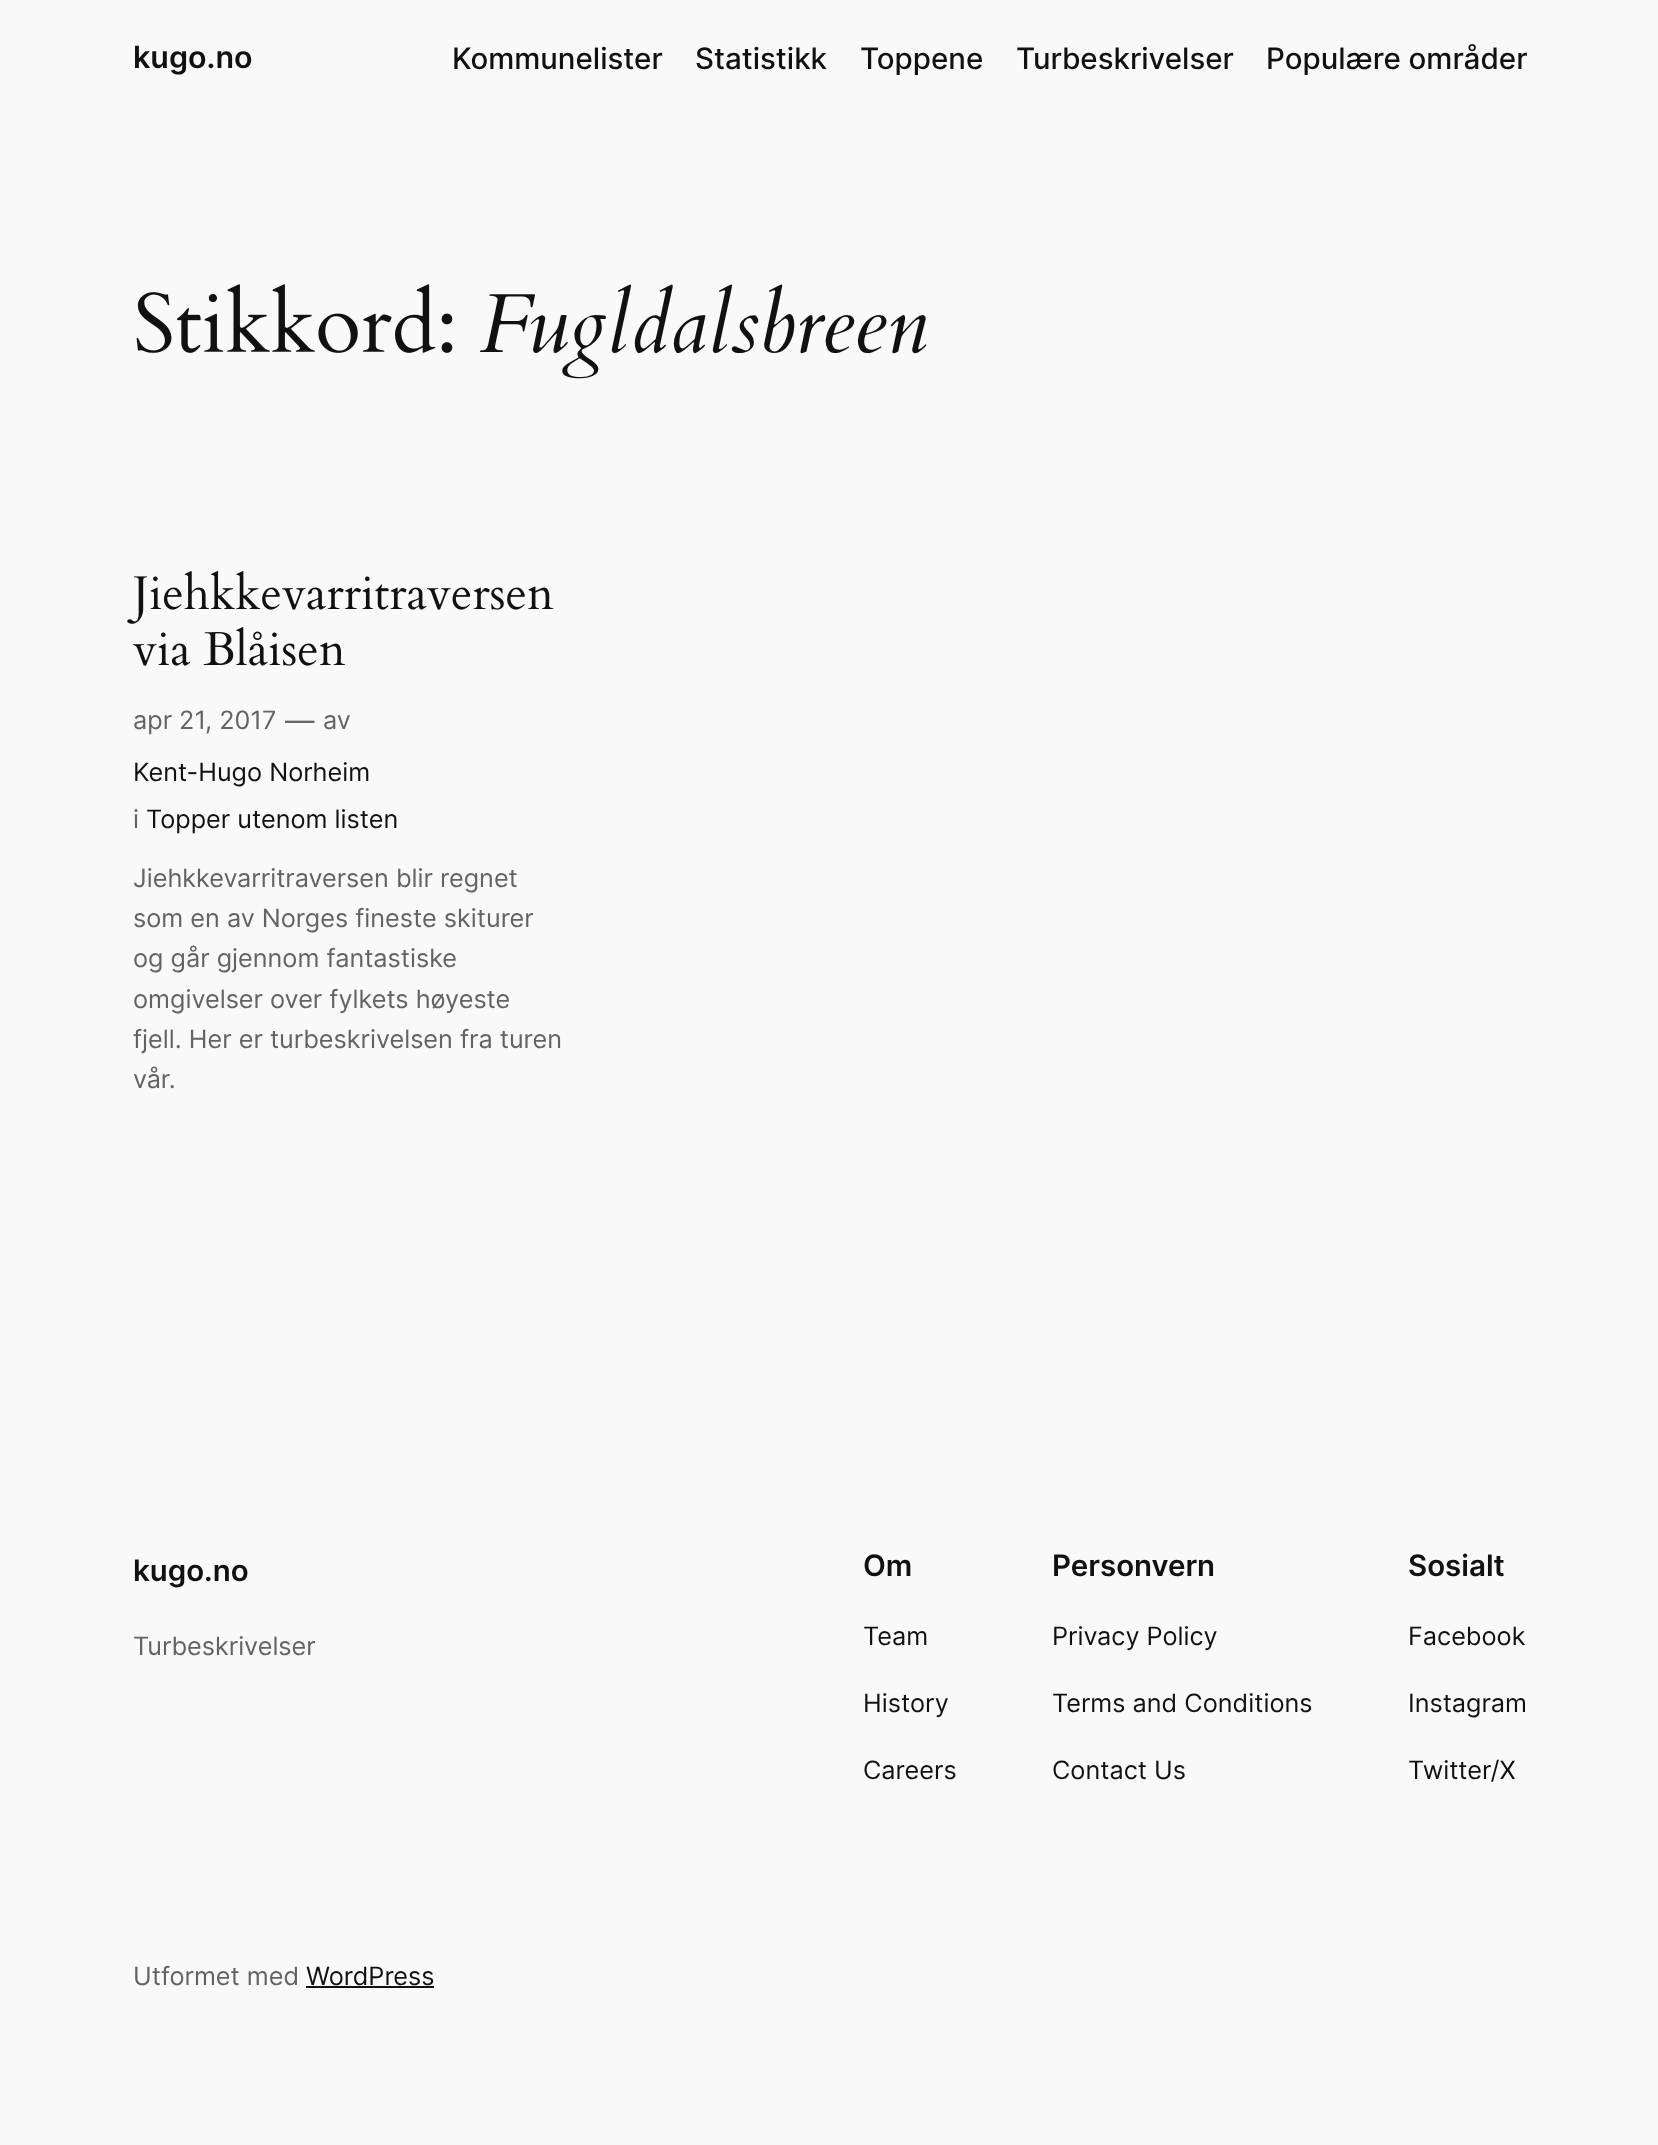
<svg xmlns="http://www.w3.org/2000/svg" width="1658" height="2145">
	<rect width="100%" height="100%" fill="#F9F9F9" />
	<text x="133" y="68" font-family="Inter" font-size="30.5" font-weight="600" fill="#111111">kugo.no</text>
	<g font-family="Inter" font-size="29.5" font-weight="500" fill="#111111">
		<text x="452" y="69">Kommunelister</text>
		<text x="695" y="69">Statistikk</text>
		<text x="860" y="69">Toppene</text>
		<text x="1016" y="69">Turbeskrivelser</text>
		<text x="1266" y="69">Populære områder</text>
	</g>
	<image x="136" y="284" width="317" height="69" href="assets/img1.png" />
	<text x="480" y="352" font-family="Cardo" font-size="84" font-style="italic" fill="#111111">Fugldalsbreen</text>
	<image x="127" y="571" width="427" height="53" href="assets/img2.png" />
	<image x="133" y="627" width="213" height="39" href="assets/img3.png" />
	<text x="133" y="729" font-family="Inter" font-size="25.25" fill="#636363">apr 21, 2017</text>
	<text x="285" y="731" font-family="Inter" font-size="29.5" fill="#636363">—</text>
	<text x="323" y="729" font-family="Inter" font-size="25.25" fill="#636363">av</text>
	<text x="133" y="781" font-family="Inter" font-size="25.25" fill="#111111">Kent-Hugo Norheim</text>
	<text x="133" y="828" font-family="Inter" font-size="25.25" fill="#636363">i</text>
	<text x="146" y="828" font-family="Inter" font-size="25.25" fill="#111111">Topper utenom listen</text>
	<g font-family="Inter" font-size="25.25" fill="#636363">
		<text x="133" y="887">Jiehkkevarritraversen blir regnet</text>
		<text x="133" y="927">som en av Norges fineste skiturer</text>
		<text x="133" y="967">og går gjennom fantastiske</text>
		<text x="133" y="1008">omgivelser over fylkets høyeste</text>
		<text x="133" y="1048">fjell. Her er turbeskrivelsen fra turen</text>
		<text x="133" y="1088">vår.</text>
	</g>
	<text x="133" y="1581" font-family="Inter" font-size="29.5" font-weight="600" fill="#111111">kugo.no</text>
	<text x="133" y="1655" font-family="Inter" font-size="25.25" fill="#636363">Turbeskrivelser</text>
	<text x="863" y="1576" font-family="Inter" font-size="29.5" font-weight="600" fill="#111111">Om</text>
	<g font-family="Inter" font-size="25.25" fill="#111111">
		<text x="863" y="1645">Team</text>
		<text x="863" y="1712">History</text>
		<text x="863" y="1779">Careers</text>
	</g>
	<text x="1052" y="1576" font-family="Inter" font-size="29.5" font-weight="600" fill="#111111">Personvern</text>
	<g font-family="Inter" font-size="25.25" fill="#111111">
		<text x="1052" y="1645">Privacy Policy</text>
		<text x="1052" y="1712">Terms and Conditions</text>
		<text x="1052" y="1779">Contact Us</text>
	</g>
	<text x="1408" y="1576" font-family="Inter" font-size="29.5" font-weight="600" fill="#111111">Sosialt</text>
	<g font-family="Inter" font-size="25.25" fill="#111111">
		<text x="1408" y="1645">Facebook</text>
		<text x="1408" y="1712">Instagram</text>
		<text x="1408" y="1779">Twitter/X</text>
	</g>
	<text x="133" y="1985" font-family="Inter" font-size="25.25" fill="#636363">Utformet med</text>
	<text x="306" y="1985" font-family="Inter" font-size="25.25" fill="#111111">WordPress</text>
	<rect x="306" y="1986" width="128" height="2" fill="#111111" />
</svg>
